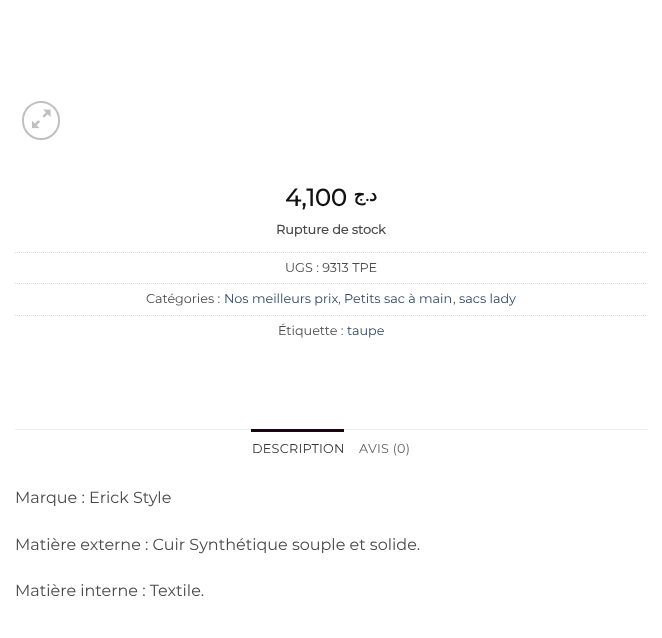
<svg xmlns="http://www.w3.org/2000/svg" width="662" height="638">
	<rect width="100%" height="100%" fill="#FFFFFF" />
	<rect x="23" y="102" width="36" height="37" rx="18" fill="none" stroke="#C0C0C0" stroke-width="2" />
	<image x="32" y="109" width="19" height="20" href="assets/img1.png" />
	<text x="285" y="206" font-family="Montserrat" font-size="24" font-weight="700" fill="#111111">4,100</text>
	<text x="365" y="201" font-family="DejaVu Sans" font-size="18" font-weight="700" direction="rtl" fill="#111111">ج</text>
	<text x="369" y="201" font-family="Montserrat" font-size="18" font-weight="700" direction="rtl" fill="#111111">.</text>
	<text x="377" y="201" font-family="DejaVu Sans" font-size="18" font-weight="700" direction="rtl" fill="#111111">د</text>
	<text x="276" y="234" font-family="Montserrat" font-size="12.75" font-weight="700" fill="#4A4A4A">Rupture de stock</text>
	<path d="M15 252.5H647" fill="none" stroke="#DDDDDD" stroke-dasharray="1 1" />
	<text x="285" y="272" font-family="Montserrat" font-size="12.75" font-weight="100" fill="#4A4A4A">UGS : 9313 TPE</text>
	<path d="M15 283.5H647" fill="none" stroke="#DDDDDD" stroke-dasharray="1 1" />
	<text x="146" y="303" font-family="Montserrat" font-size="12.75" font-weight="100" fill="#4A4A4A">Catégories :</text>
	<text x="224" y="303" font-family="Montserrat" font-size="12.75" font-weight="100" fill="#334862">Nos meilleurs prix</text>
	<text x="338" y="303" font-family="Montserrat" font-size="12.75" font-weight="100" fill="#4A4A4A">,</text>
	<text x="344" y="303" font-family="Montserrat" font-size="12.75" font-weight="100" fill="#334862">Petits sac à main</text>
	<text x="453" y="303" font-family="Montserrat" font-size="12.75" font-weight="100" fill="#4A4A4A">,</text>
	<text x="459" y="303" font-family="Montserrat" font-size="12.75" font-weight="100" fill="#334862">sacs lady</text>
	<path d="M15 315.5H647" fill="none" stroke="#DDDDDD" stroke-dasharray="1 1" />
	<text x="278" y="335" font-family="Montserrat" font-size="12.75" font-weight="100" fill="#4A4A4A">Étiquette :</text>
	<text x="347" y="335" font-family="Montserrat" font-size="12.75" font-weight="100" fill="#334862">taupe</text>
	<rect x="15" y="429" width="632" height="1" fill="#ECECEC" />
	<rect x="251" y="429" width="93" height="3" fill="#190512" />
	<text x="252" y="453" font-family="Montserrat" font-size="12.75" font-weight="100" letter-spacing="0.25" fill="#363636">DESCRIPTION</text>
	<text x="359" y="453" font-family="Montserrat" font-size="12.75" font-weight="100" letter-spacing="0.25" fill="#656565">AVIS (0)</text>
	<g font-family="Montserrat" font-size="16" font-weight="100" fill="#4A4A4A">
		<text x="15" y="503">Marque : Erick Style</text>
		<text x="15" y="550">Matière externe : Cuir Synthétique souple et solide.</text>
		<text x="15" y="596">Matière interne : Textile.</text>
	</g>
</svg>
